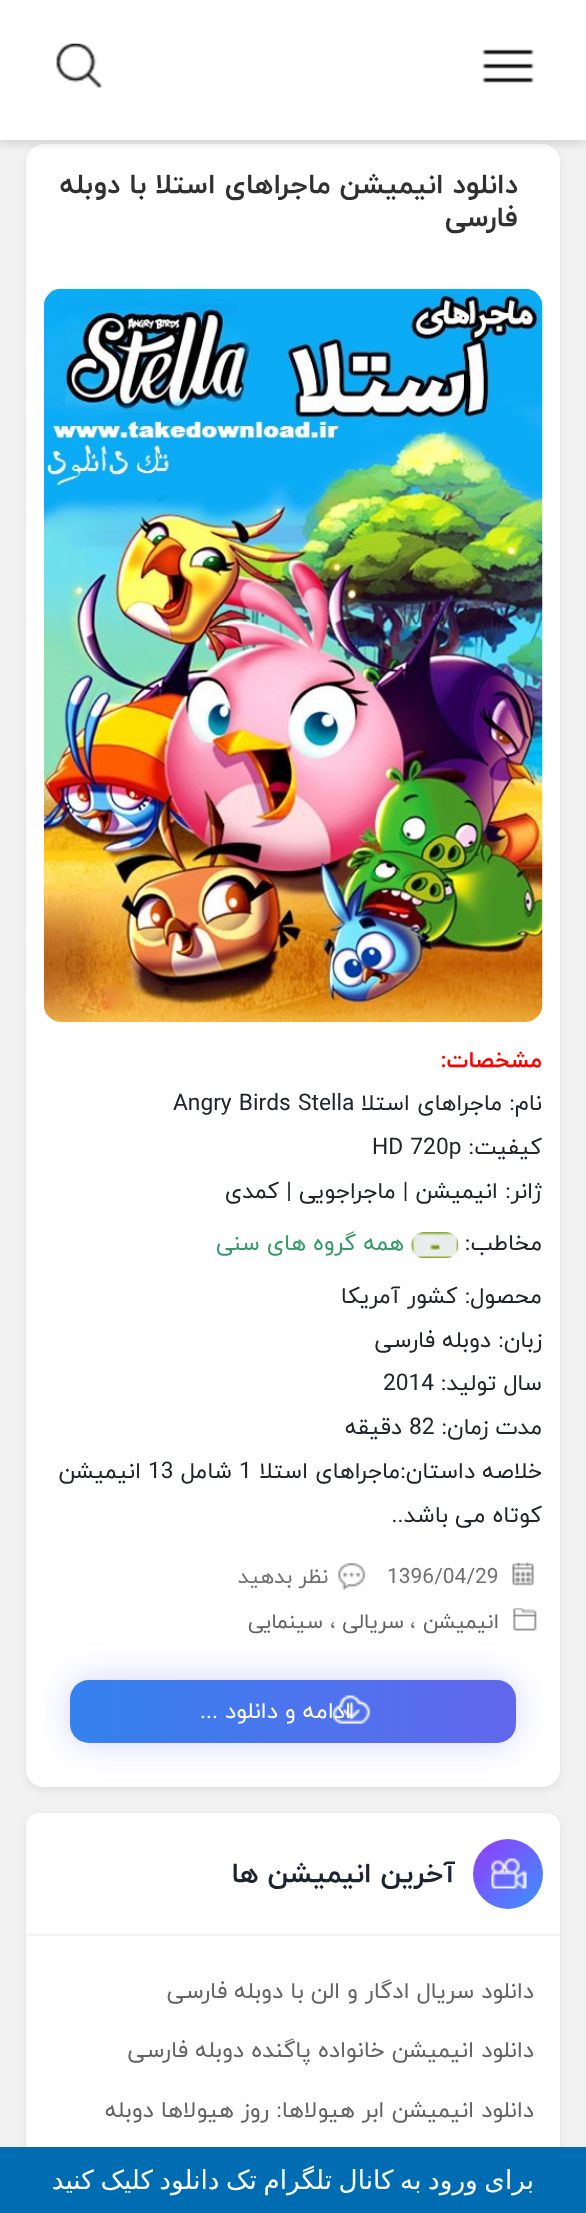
<svg xmlns="http://www.w3.org/2000/svg" width="586" height="2213">
	<defs>
		<clipPath id="clip1"><rect x="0" y="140" width="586" height="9" /></clipPath>
		<linearGradient id="g1" gradientUnits="userSpaceOnUse" x1="70" y1="1712" x2="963" y2="1712"><stop offset="0" stop-color="#3482EE" /><stop offset="0.82" stop-color="#7F55EB" /><stop offset="1" stop-color="#7F55EB" /></linearGradient>
		<linearGradient id="g2" gradientUnits="userSpaceOnUse" x1="473" y1="1839" x2="543" y2="1909"><stop offset="0" stop-color="#9539FF" /><stop offset="1" stop-color="#3995FF" /></linearGradient>
	</defs>
	<rect width="100%" height="100%" fill="#F1F1F1" />
	<rect x="26" y="147" width="534" height="1643" rx="18" fill="#BFBDBD" fill-opacity="0.31" filter="blur(3.5px)" />
	<rect x="0" y="0" width="586" height="140" fill="#FFFFFF" />
	<rect x="26" y="144" width="534" height="1643" rx="18" fill="#FFFFFF" />
	<g clip-path="url(#clip1)">
		<rect x="0" y="0" width="586" height="140" fill="#000000" fill-opacity="0.21" filter="blur(7px)" />
	</g>
	<image x="482" y="49" width="52" height="34" href="assets/img1.png" />
	<image x="56" y="43" width="46" height="45" href="assets/img2.png" />
	<g font-family="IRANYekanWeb" font-size="28" font-weight="700" direction="rtl" fill="#303030">
		<text x="518" y="193">دانلود انیمیشن ماجراهای استلا با دوبله</text>
		<text x="518" y="226">فارسی</text>
	</g>
	<image x="43" y="288" width="500" height="734" href="assets/img3.png" />
	<text x="542" y="1067" font-family="IRANYekanWeb" font-size="22.75" font-weight="700" direction="rtl" fill="#FF0000">مشخصات:</text>
	<text x="542" y="1110" font-family="IRANYekanWeb" font-size="22.75" direction="rtl" fill="#212529">نام: ماجراهای استلا</text>
	<text x="173" y="1110" font-family="IRANYekanWeb" font-size="22.75" fill="#212529">Angry Birds Stella</text>
	<text x="542" y="1154" font-family="IRANYekanWeb" font-size="22.75" direction="rtl" fill="#212529">کیفیت:</text>
	<text x="372" y="1154" font-family="IRANYekanWeb" font-size="22.75" fill="#212529">HD 720p</text>
	<g font-family="IRANYekanWeb" font-size="22.75" direction="rtl" fill="#212529">
		<text x="542" y="1198">ژانر: انیمیشن | ماجراجویی | کمدی</text>
		<text x="542" y="1250">مخاطب:</text>
	</g>
	<image x="411" y="1232" width="48" height="27" href="assets/img4.png" />
	<text x="404" y="1250" font-family="IRANYekanWeb" font-size="22.75" direction="rtl" fill="#339966">همه گروه های سنی</text>
	<g font-family="IRANYekanWeb" font-size="22.75" direction="rtl" fill="#212529">
		<text x="542" y="1303">محصول: کشور آمریکا</text>
		<text x="542" y="1347">زبان: دوبله فارسی</text>
		<text x="542" y="1390">سال تولید:</text>
	</g>
	<text x="383" y="1390" font-family="IRANYekanWeb" font-size="22.75" fill="#212529">2014</text>
	<text x="542" y="1434" font-family="IRANYekanWeb" font-size="22.75" direction="rtl" fill="#212529">مدت زمان:</text>
	<text x="409" y="1434" font-family="IRANYekanWeb" font-size="22.75" fill="#212529">82</text>
	<g font-family="IRANYekanWeb" font-size="22.75" direction="rtl" fill="#212529">
		<text x="402" y="1434">دقیقه</text>
		<text x="542" y="1478">خلاصه داستان:ماجراهای استلا</text>
	</g>
	<text x="239" y="1478" font-family="IRANYekanWeb" font-size="22.75" fill="#212529">1</text>
	<text x="232" y="1478" font-family="IRANYekanWeb" font-size="22.75" direction="rtl" fill="#212529">شامل</text>
	<text x="148" y="1478" font-family="IRANYekanWeb" font-size="22.75" fill="#212529">13</text>
	<g font-family="IRANYekanWeb" font-size="22.75" direction="rtl" fill="#212529">
		<text x="141" y="1478">انیمیشن</text>
		<text x="542" y="1522">کوتاه می باشد..</text>
	</g>
	<image x="512" y="1562" width="22" height="24" href="assets/img5.png" />
	<text x="387" y="1583" font-family="IRANYekanWeb" font-size="21" fill="#707070">1396/04/29</text>
	<image x="338" y="1563" width="28" height="27" href="assets/img6.png" />
	<text x="328" y="1583" font-family="IRANYekanWeb" font-size="21" direction="rtl" fill="#707070">نظر بدهید</text>
	<image x="513" y="1608" width="24" height="23" href="assets/img7.png" />
	<text x="499" y="1628" font-family="IRANYekanWeb" font-size="21" direction="rtl" fill="#636363">انیمیشن</text>
	<text x="410" y="1628" font-family="IRANYekanWeb" font-size="21" fill="#707070">،</text>
	<text x="404" y="1628" font-family="IRANYekanWeb" font-size="21" direction="rtl" fill="#636363">سریالی</text>
	<text x="330" y="1628" font-family="IRANYekanWeb" font-size="21" fill="#707070">،</text>
	<text x="323" y="1628" font-family="IRANYekanWeb" font-size="21" direction="rtl" fill="#636363">سینمایی</text>
	<rect x="70" y="1680" width="446" height="63" rx="19" fill="#646AFF" fill-opacity="0.29" filter="blur(17.5px)" />
	<rect x="70" y="1680" width="446" height="63" rx="19" fill="url(#g1)" />
	<text x="351" y="1718" font-family="IRANYekanWeb" font-size="22.75" direction="rtl" fill="#FFFFFF">ادامه و دانلود ...</text>
	<image x="332" y="1695" width="39" height="29" href="assets/img8.png" />
	<rect x="26" y="1817" width="534" height="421" rx="14" fill="#BFBDBD" fill-opacity="0.31" filter="blur(3.5px)" />
	<rect x="26" y="1813" width="534" height="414" rx="14" fill="#FFFFFF" />
	<circle cx="508" cy="1874" r="35" fill="url(#g2)" />
	<image x="491" y="1858" width="36" height="31" href="assets/img9.png" />
	<text x="455" y="1882" font-family="IRANYekanWeb" font-size="28" font-weight="700" direction="rtl" fill="#1D2331">آخرین انیمیشن ها</text>
	<rect x="26" y="1934" width="534" height="2" fill="#F3F3F3" />
	<g font-family="IRANYekanWeb" font-size="22.75" direction="rtl" fill="#636363">
		<text x="534" y="1998">دانلود سریال ادگار و الن با دوبله فارسی</text>
		<text x="534" y="2057">دانلود انیمیشن خانواده پاگنده دوبله فارسی</text>
		<text x="534" y="2117">دانلود انیمیشن ابر هیولاها: روز هیولاها دوبله</text>
	</g>
	<rect x="0" y="2147" width="586" height="66" fill="#006CB1" />
	<g font-family="DejaVu Sans" font-size="26.25" direction="rtl" fill="#FFFFFF">
		<text x="534" y="2189" word-spacing="-1.75">برای ورود به کانال تلگرام تک دانلود</text>
		<text x="153" y="2189" word-spacing="-1.75">کلیک کنید</text>
	</g>
</svg>
